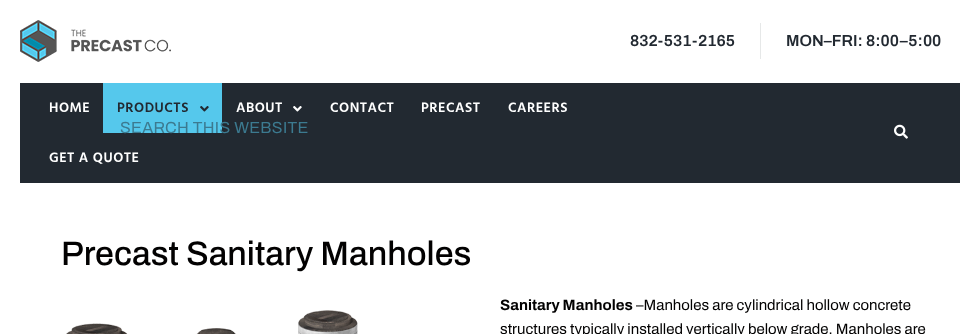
<svg xmlns="http://www.w3.org/2000/svg" width="980" height="334">
	<rect width="100%" height="100%" fill="#FFFFFF" />
	<image x="20" y="20" width="151" height="42" href="assets/img1.png" />
	<rect x="760" y="23" width="1" height="36" fill="#E6E8E8" />
	<g font-family="Archivo" font-size="16" font-weight="600" fill="#222931">
		<text x="630" y="46">832-531-2165</text>
		<text x="786" y="46">MON–FRI: 8:00–5:00</text>
	</g>
	<rect x="20" y="83" width="940" height="100" fill="#222931" />
	<text x="49" y="112" font-family="Hind" font-size="14" font-weight="600" letter-spacing="0.5" fill="#FFFFFF">HOME</text>
	<rect x="103" y="83" width="119" height="50" fill="#55C8EC" />
	<text x="117" y="112" font-family="Hind" font-size="14" font-weight="600" letter-spacing="0.5" fill="#222931">PRODUCTS</text>
	<image x="200" y="106" width="9" height="6" href="assets/img2.png" />
	<text x="236" y="112" font-family="Hind" font-size="14" font-weight="600" letter-spacing="0.5" fill="#FFFFFF">ABOUT</text>
	<image x="293" y="106" width="9" height="6" href="assets/img3.png" />
	<g font-family="Hind" font-size="14" font-weight="600" letter-spacing="0.5" fill="#FFFFFF">
		<text x="330" y="112">CONTACT</text>
		<text x="421" y="112">PRECAST</text>
		<text x="508" y="112">CAREERS</text>
		<text x="49" y="162">GET A QUOTE</text>
	</g>
	<image x="894" y="124" width="14" height="15" href="assets/img4.png" />
	<text x="61" y="265" font-family="Archivo" font-size="34" font-weight="500" fill="#020101">Precast Sanitary Manholes</text>
	<image x="66" y="310" width="292" height="24" href="assets/img5.png" />
	<text x="500" y="310" font-family="Archivo" font-size="15" font-weight="700" fill="#020101">Sanitary Manholes</text>
	<g font-family="Archivo" font-size="15" fill="#020101">
		<text x="636" y="310">–Manholes are cylindrical hollow concrete</text>
		<text x="500" y="334">structures typically installed vertically below grade. Manholes are</text>
	</g>
	<text x="120" y="133" font-family="Archivo" font-size="16" letter-spacing="0.3" fill="#3C7A90">SEARCH THIS WEBSITE</text>
</svg>
